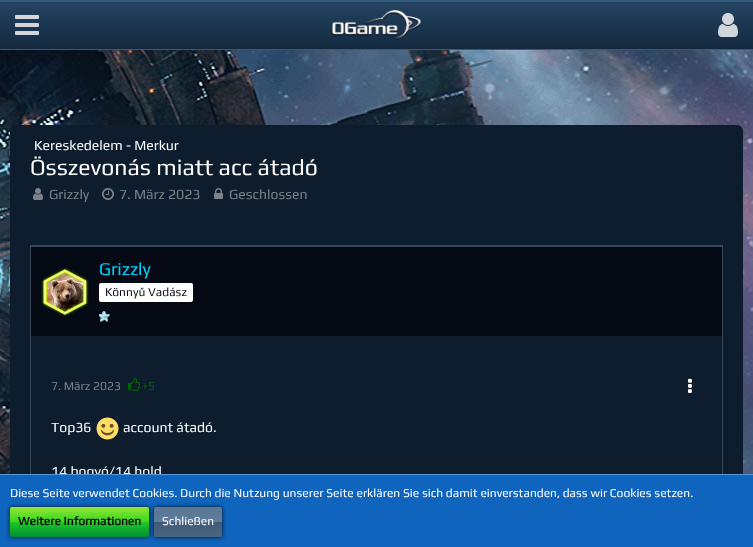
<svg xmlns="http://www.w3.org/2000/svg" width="753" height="547">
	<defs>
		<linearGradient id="g1" gradientUnits="userSpaceOnUse" x1="377" y1="50" x2="377" y2="0"><stop offset="0" stop-color="#13283E" /><stop offset="1" stop-color="#244563" /></linearGradient>
		<linearGradient id="g2" gradientUnits="userSpaceOnUse" x1="80" y1="507" x2="80" y2="537"><stop offset="0" stop-color="#94E733" /><stop offset="0.5" stop-color="#36D521" /><stop offset="0.51" stop-color="#1EC725" /><stop offset="1" stop-color="#008E3A" /></linearGradient>
		<linearGradient id="g3" gradientUnits="userSpaceOnUse" x1="188" y1="537" x2="188" y2="507"><stop offset="0" stop-color="#4A6682" /><stop offset="0.49" stop-color="#415B77" /><stop offset="0.5" stop-color="#5D7C9B" /><stop offset="1" stop-color="#5B7693" /></linearGradient>
	</defs>
	<rect width="100%" height="100%" fill="#FFFFFF" />
	<image x="0" y="50" width="753" height="424" href="assets/img1.png" />
	<rect x="0" y="2" width="753" height="47" fill="url(#g1)" />
	<rect x="0" y="49" width="753" height="1" fill="#315B7D" />
	<rect x="0" y="0" width="753" height="2" fill="#315B7D" />
	<image x="15" y="15" width="24" height="20" href="assets/img2.png" />
	<image x="718" y="13" width="20" height="24" href="assets/img3.png" />
	<image x="331" y="10" width="91" height="30" href="assets/img4.png" />
	<rect x="10" y="125" width="733" height="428" rx="6" fill="#0D1D2E" />
	<text x="34" y="150" font-family="Play" font-size="14" fill="#FFFFFF">Kereskedelem - Merkur</text>
	<text x="30" y="175" font-family="Play" font-size="23" fill="#FFFFFF">Összevonás miatt acc átadó</text>
	<image x="33" y="188" width="10" height="12" href="assets/img5.png" />
	<text x="49" y="199" font-family="Play" font-size="14" fill="#7D8287">Grizzly</text>
	<image x="102" y="188" width="12" height="12" href="assets/img6.png" />
	<text x="119" y="199" font-family="Play" font-size="14" fill="#7D8287">7. März 2023</text>
	<image x="214" y="188" width="9" height="11" href="assets/img7.png" />
	<text x="229" y="199" font-family="Play" font-size="14" fill="#7D8287">Geschlossen</text>
	<rect x="30.5" y="245.5" width="692" height="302" fill="none" stroke="#334859" />
	<rect x="31" y="247" width="691" height="89" fill="#050914" />
	<rect x="31" y="246" width="691" height="1" fill="#334859" />
	<image x="41" y="268" width="48" height="48" href="assets/img8.png" />
	<text x="99" y="275" font-family="Play" font-size="18" fill="#00D1FF">Grizzly</text>
	<rect x="99" y="283" width="94" height="19" rx="2" fill="#FFFFFF" />
	<text x="105" y="296" font-family="Play" font-size="12" fill="#0D111C">Könnyű Vadász</text>
	<image x="99" y="311" width="12" height="12" href="assets/img9.png" />
	<text x="51" y="390" font-family="Play" font-size="12" fill="#7D8287">7. März 2023</text>
	<image x="128" y="378" width="12" height="13" href="assets/img10.png" />
	<text x="142" y="390" font-family="Play" font-size="12" fill="#006600">+5</text>
	<image x="688" y="378" width="4" height="15" href="assets/img11.png" />
	<text x="51" y="432" font-family="Play" font-size="14" fill="#FFFFFF">Top36</text>
	<image x="96" y="417" width="23" height="23" href="assets/img12.png" />
	<g font-family="Play" font-size="14" fill="#FFFFFF">
		<text x="123" y="432">account átadó.</text>
		<text x="51" y="476">14 bogyó/14 hold</text>
	</g>
	<rect x="0" y="475" width="753" height="72" fill="#0F64BD" />
	<rect x="0" y="474" width="753" height="1" fill="#5498DE" />
	<text x="10" y="497" font-family="Play" font-size="12" fill="#FFFFFF">Diese Seite verwendet Cookies. Durch die Nutzung unserer Seite erklären Sie sich damit einverstanden, dass wir Cookies setzen.</text>
	<rect x="10" y="507" width="139" height="30" rx="2" fill="#08111C" filter="blur(2px)" />
	<rect x="10" y="507" width="139" height="30" rx="2" fill="url(#g2)" />
	<text x="18" y="525" font-family="Play" font-size="12" font-weight="700" fill="#000000">Weitere Informationen</text>
	<rect x="154" y="507" width="68" height="30" rx="2" fill="#08111C" filter="blur(2px)" />
	<rect x="154" y="507" width="68" height="30" rx="2" fill="url(#g3)" />
	<text x="162" y="525" font-family="Play" font-size="12" fill="#FFFFFF">Schließen</text>
</svg>
